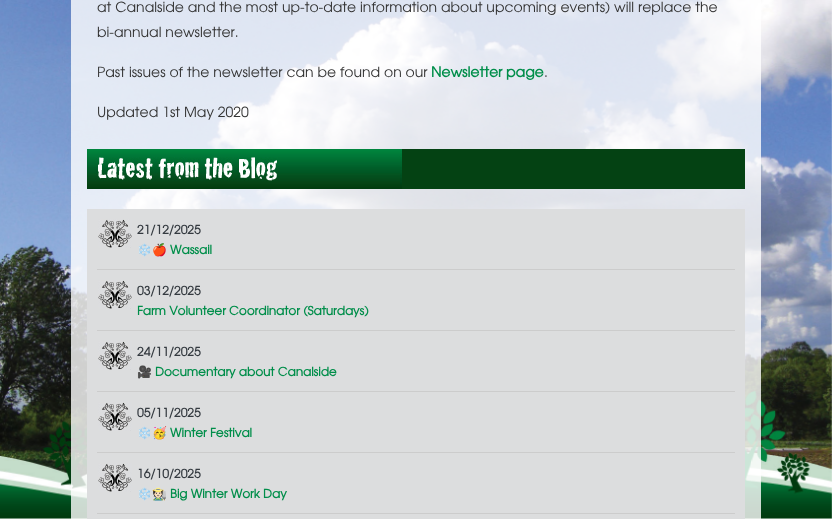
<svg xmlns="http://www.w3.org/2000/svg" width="832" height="519">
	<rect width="100%" height="100%" fill="#FFFFFF" />
	<image x="0" y="0" width="832" height="519" href="assets/img1.png" />
	<rect x="71" y="0" width="690" height="519" fill="#FFFFFF" fill-opacity="0.8" />
	<g font-family="TeX Gyre Adventor" font-size="14" fill="#333333">
		<text x="97" y="12">at Canalside and the most up-to-date information about upcoming events) will replace the</text>
		<text x="97" y="37">bi-annual newsletter.</text>
		<text x="97" y="77">Past issues of the newsletter can be found on our</text>
	</g>
	<text x="431" y="77" font-family="TeX Gyre Adventor" font-size="14" font-weight="700" fill="#008E4A">Newsletter page</text>
	<g font-family="TeX Gyre Adventor" font-size="14" fill="#333333">
		<text x="544" y="77">.</text>
		<text x="97" y="117">Updated 1st May 2020</text>
	</g>
	<rect x="402" y="149" width="343" height="40" fill="#044213" />
	<image x="87" y="149" width="315" height="40" href="assets/img2.png" />
	<rect x="87" y="209" width="658" height="310" fill="#DCDDDE" />
	<image x="98" y="219" width="34" height="29" href="assets/img3.png" />
	<rect x="97" y="269" width="638" height="1" fill="#CCCCCC" />
	<text x="137" y="234" font-family="TeX Gyre Adventor" font-size="12" font-weight="700" fill="#343A40">21/12/2025</text>
	<text x="137" y="254" font-family="Noto Color Emoji" font-size="12" font-weight="700" fill="#008E4A">❄️🍎</text>
	<text x="170" y="254" font-family="TeX Gyre Adventor" font-size="12" font-weight="700" fill="#008E4A">Wassail</text>
	<image x="98" y="280" width="34" height="29" href="assets/img3.png" />
	<rect x="97" y="330" width="638" height="1" fill="#CCCCCC" />
	<text x="137" y="295" font-family="TeX Gyre Adventor" font-size="12" font-weight="700" fill="#343A40">03/12/2025</text>
	<text x="137" y="315" font-family="TeX Gyre Adventor" font-size="12" font-weight="700" fill="#008E4A">Farm Volunteer Coordinator (Saturdays)</text>
	<image x="98" y="341" width="34" height="29" href="assets/img3.png" />
	<rect x="97" y="391" width="638" height="1" fill="#CCCCCC" />
	<text x="137" y="356" font-family="TeX Gyre Adventor" font-size="12" font-weight="700" fill="#343A40">24/11/2025</text>
	<text x="137" y="376" font-family="Noto Color Emoji" font-size="12" font-weight="700" fill="#008E4A">🎥</text>
	<text x="155" y="376" font-family="TeX Gyre Adventor" font-size="12" font-weight="700" fill="#008E4A">Documentary about Canalside</text>
	<image x="98" y="402" width="34" height="29" href="assets/img3.png" />
	<rect x="97" y="452" width="638" height="1" fill="#CCCCCC" />
	<text x="137" y="417" font-family="TeX Gyre Adventor" font-size="12" font-weight="700" fill="#343A40">05/11/2025</text>
	<text x="137" y="437" font-family="Noto Color Emoji" font-size="12" font-weight="700" fill="#008E4A">❄️🥳</text>
	<text x="170" y="437" font-family="TeX Gyre Adventor" font-size="12" font-weight="700" fill="#008E4A">Winter Festival</text>
	<image x="98" y="463" width="34" height="29" href="assets/img3.png" />
	<rect x="97" y="513" width="638" height="1" fill="#CCCCCC" />
	<text x="137" y="478" font-family="TeX Gyre Adventor" font-size="12" font-weight="700" fill="#343A40">16/10/2025</text>
	<text x="137" y="498" font-family="Noto Color Emoji" font-size="12" font-weight="700" fill="#008E4A">❄️🧑🏻‍🌾</text>
	<text x="170" y="498" font-family="TeX Gyre Adventor" font-size="12" font-weight="700" fill="#008E4A">Big Winter Work Day</text>
</svg>
